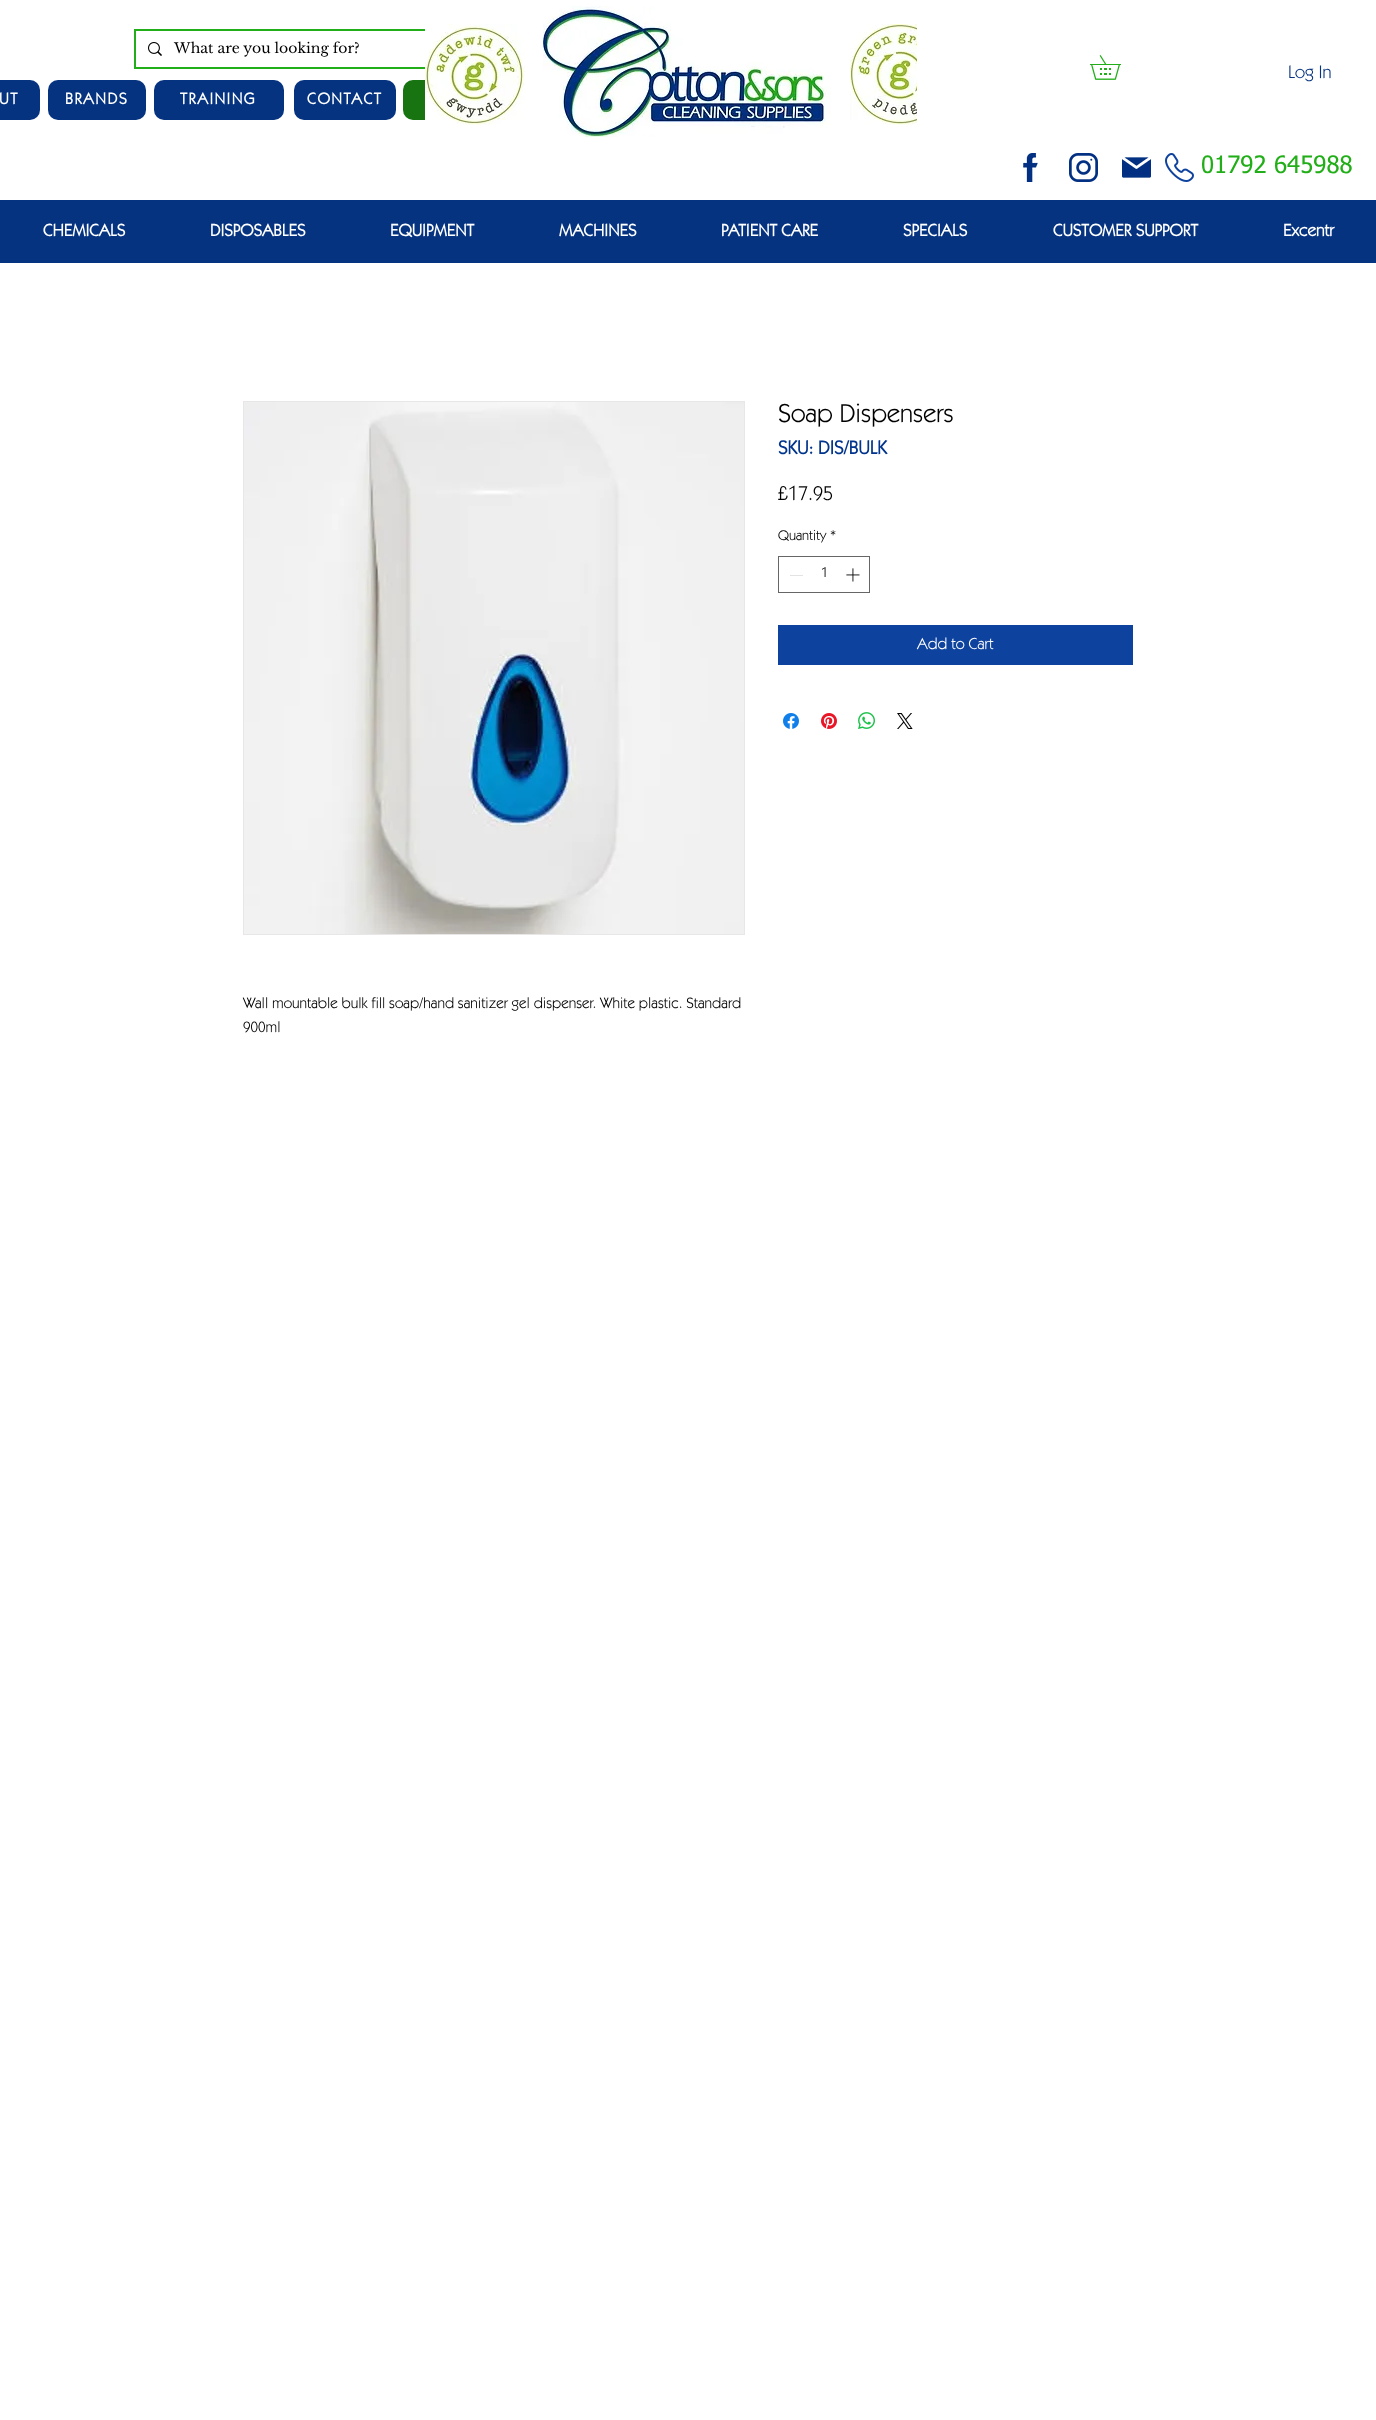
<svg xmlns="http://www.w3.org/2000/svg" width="1376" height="2420">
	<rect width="100%" height="100%" fill="#FFFFFF" />
	<rect x="135" y="30" width="299" height="38" fill="none" stroke="#22AE18" stroke-width="2" />
	<image x="148" y="42" width="14" height="14" href="assets/img1.png" />
	<text x="174" y="53" font-family="Libre Baskerville" font-size="14" fill="#000000">What are you looking for?</text>
	<rect x="-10" y="80" width="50" height="40" rx="10" fill="#053380" />
	<text x="-1" y="104" font-family="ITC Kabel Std" font-size="16" font-weight="700" letter-spacing="1.5" fill="#FFFFFF">UT</text>
	<rect x="48" y="80" width="98" height="40" rx="10" fill="#053380" />
	<text x="65" y="104" font-family="ITC Kabel Std" font-size="16" font-weight="700" letter-spacing="1.5" fill="#FFFFFF">BRANDS</text>
	<rect x="154" y="80" width="130" height="40" rx="10" fill="#053380" />
	<text x="180" y="104" font-family="ITC Kabel Std" font-size="16" font-weight="700" letter-spacing="1.5" fill="#FFFFFF">TRAINING</text>
	<rect x="294" y="80" width="102" height="40" rx="10" fill="#053380" />
	<text x="307" y="104" font-family="ITC Kabel Std" font-size="16" font-weight="700" letter-spacing="1.5" fill="#FFFFFF">CONTACT</text>
	<rect x="403" y="80" width="120" height="40" rx="10" fill="#177410" />
	<rect x="458" y="80" width="65" height="40" fill="#FFFFFF" />
	<image x="425" y="24" width="100" height="101" href="assets/img2.png" />
	<image x="543" y="6" width="288" height="131" href="assets/img3.png" />
	<image x="850" y="24" width="67" height="101" href="assets/img4.png" />
	<image x="1090" y="55" width="31" height="25" href="assets/img5.png" />
	<text x="1288" y="78" font-family="ITC Kabel Std" font-size="18" fill="#053380">Log In</text>
	<image x="1023" y="153" width="15" height="29" href="assets/img6.png" />
	<image x="1069" y="153" width="29" height="29" href="assets/img7.png" />
	<image x="1122" y="157" width="29" height="21" href="assets/img8.png" />
	<image x="1165" y="153" width="29" height="29" href="assets/img9.png" />
	<text x="1201" y="173" font-family="tahoma" font-size="24" fill="#22AE18">01792 645988</text>
	<rect x="0" y="200" width="1376" height="63" fill="#053380" />
	<g font-family="ITC Kabel Std" font-size="17" font-weight="700" fill="#FFFFFF">
		<text x="43" y="236">CHEMICALS</text>
		<text x="210" y="236">DISPOSABLES</text>
		<text x="390" y="236">EQUIPMENT</text>
		<text x="559" y="236">MACHINES</text>
		<text x="721" y="236">PATIENT CARE</text>
		<text x="903" y="236">SPECIALS</text>
		<text x="1053" y="236">CUSTOMER SUPPORT</text>
		<text x="1283" y="236">Excentr</text>
	</g>
	<text x="778" y="422" font-family="ITC Kabel Std" font-size="26" fill="#000000">Soap Dispensers</text>
	<text x="778" y="454" font-family="ITC Kabel Std" font-size="19" font-weight="700" fill="#01348C">SKU: DIS/BULK</text>
	<text x="778" y="500" font-family="ITC Kabel Std" font-size="20" fill="#000000">£17.95</text>
	<g font-family="ITC Kabel Std" font-size="14" fill="#000000">
		<text x="778" y="540">Quantity</text>
		<text x="830" y="540">*</text>
	</g>
	<rect x="778.5" y="556.5" width="91" height="36" fill="none" stroke="#666666" />
	<rect x="790" y="575" width="13" height="1" fill="#E3E3E3" />
	<text x="821" y="577" font-family="ITC Kabel Std" font-size="14" fill="#000000">1</text>
	<image x="846" y="568" width="14" height="14" href="assets/img10.png" />
	<rect x="778" y="625" width="355" height="40" fill="#0D429E" />
	<text x="917" y="649" font-family="ITC Kabel Std" font-size="16" fill="#FFFFFF">Add to Cart</text>
	<image x="783" y="713" width="16" height="16" href="assets/img11.png" />
	<image x="821" y="713" width="16" height="16" href="assets/img12.png" />
	<image x="858" y="712" width="17" height="17" href="assets/img13.png" />
	<image x="897" y="713" width="16" height="16" href="assets/img14.png" />
	<rect x="243.5" y="401.5" width="501" height="533" fill="none" stroke="#E8E6E6" />
	<image x="244" y="402" width="500" height="532" href="assets/img15.png" />
	<g font-family="ITC Kabel Std" font-size="15" fill="#000000">
		<text x="243" y="1008">Wall mountable bulk fill soap/hand sanitizer gel dispenser. White plastic. Standard</text>
		<text x="243" y="1032">900ml</text>
	</g>
</svg>
